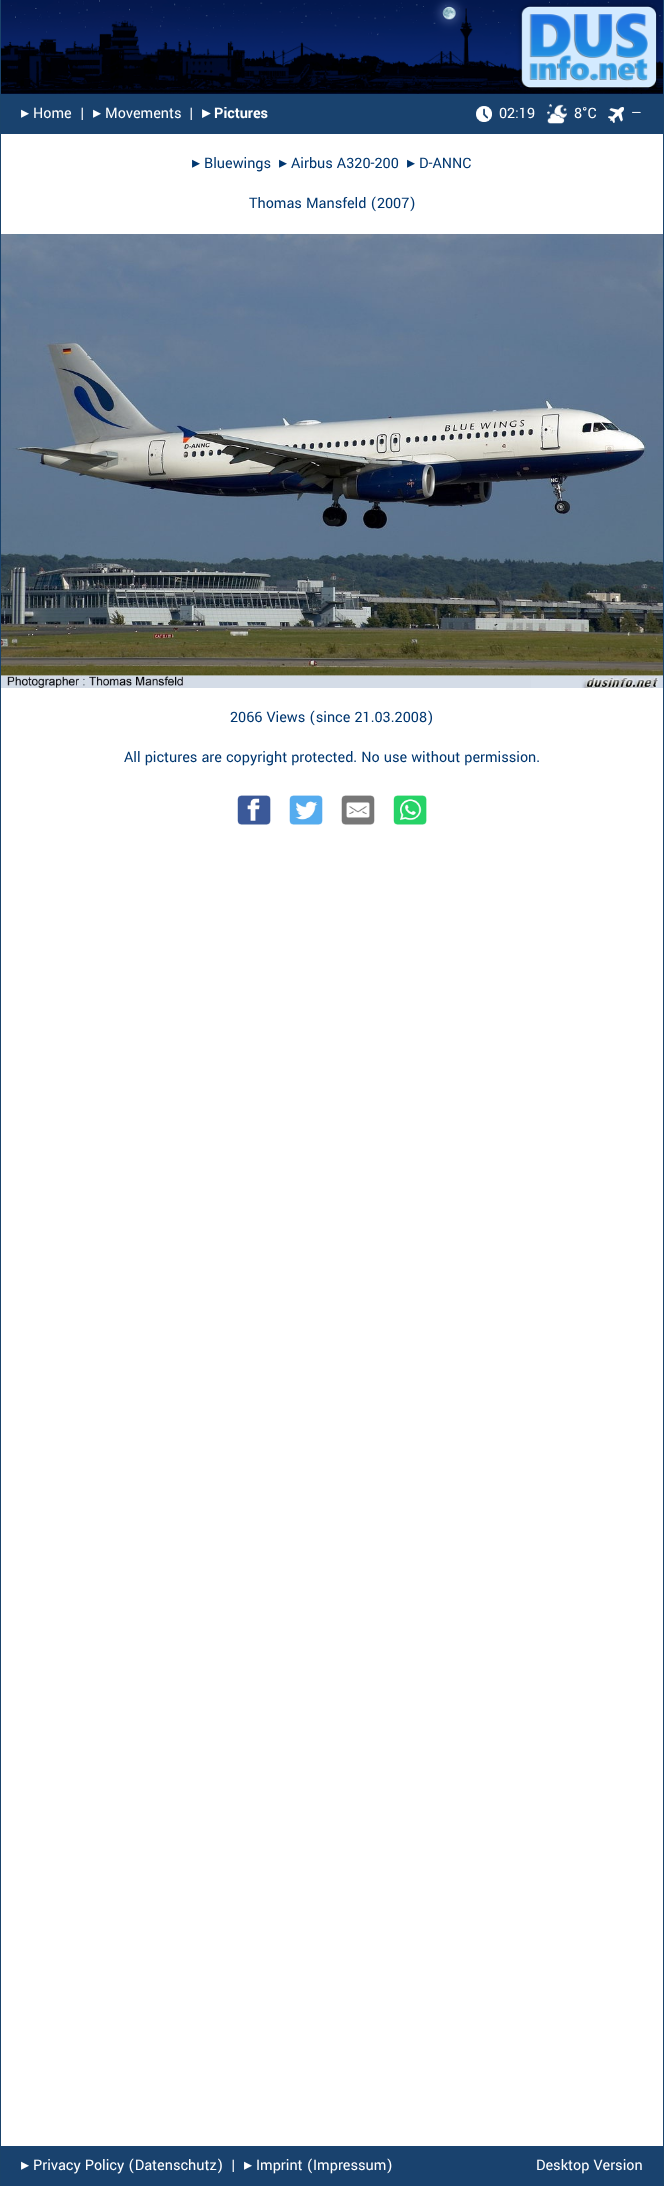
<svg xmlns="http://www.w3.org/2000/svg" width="664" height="2186">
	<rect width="100%" height="100%" fill="#FFFFFF" />
	<rect x="663" y="0" width="1" height="2186" fill="#1A436B" />
	<rect x="0" y="0" width="1" height="2186" fill="#1A436B" />
	<image x="1" y="0" width="662" height="94" href="assets/img1.png" />
	<rect x="1" y="94" width="662" height="40" fill="#19426E" />
	<text x="21" y="118" font-family="DejaVu Sans" font-size="16" fill="#FFFFFF">▸︎</text>
	<g font-family="Yantramanav" font-size="16" fill="#FFFFFF">
		<text x="33" y="118">Home</text>
		<text x="80" y="118">|</text>
	</g>
	<text x="93" y="118" font-family="DejaVu Sans" font-size="16" fill="#FFFFFF">▸︎</text>
	<g font-family="Yantramanav" font-size="16" fill="#FFFFFF">
		<text x="105" y="118">Movements</text>
		<text x="189" y="118">|</text>
	</g>
	<text x="202" y="118" font-family="DejaVu Sans" font-size="16" font-weight="700" fill="#FFFFFF">▸︎</text>
	<text x="214" y="118" font-family="Yantramanav" font-size="16" font-weight="700" fill="#FFFFFF">Pictures</text>
	<image x="476" y="106" width="16" height="16" href="assets/img2.png" />
	<text x="499" y="118" font-family="Yantramanav" font-size="16" fill="#FFFFFF">02:19</text>
	<image x="547" y="104" width="20" height="20" href="assets/img3.png" />
	<text x="574" y="118" font-family="Yantramanav" font-size="16" fill="#FFFFFF">8°C</text>
	<image x="608" y="107" width="16" height="16" href="assets/img4.png" />
	<text x="631" y="118" font-family="Yantramanav" font-size="16" fill="#FFFFFF">—</text>
	<text x="192" y="168" font-family="DejaVu Sans" font-size="16" fill="#003770">▸︎</text>
	<text x="204" y="168" font-family="Yantramanav" font-size="16" fill="#003770">Bluewings</text>
	<text x="279" y="168" font-family="DejaVu Sans" font-size="16" fill="#003770">▸︎</text>
	<text x="291" y="168" font-family="Yantramanav" font-size="16" fill="#003770">Airbus A320-200</text>
	<text x="407" y="168" font-family="DejaVu Sans" font-size="16" fill="#003770">▸︎</text>
	<g font-family="Yantramanav" font-size="16" fill="#003770">
		<text x="419" y="168">D-ANNC</text>
		<text x="249" y="208">Thomas Mansfeld (2007)</text>
	</g>
	<image x="1" y="234" width="662" height="454" href="assets/img5.png" />
	<g font-family="Yantramanav" font-size="16" fill="#003770">
		<text x="230" y="722">2066 Views (since 21.03.2008)</text>
		<text x="124" y="762">All pictures are copyright protected. No use without permission.</text>
	</g>
	<image x="237" y="795" width="34" height="30" href="assets/img6.png" />
	<image x="289" y="795" width="34" height="30" href="assets/img7.png" />
	<image x="341" y="795" width="34" height="30" href="assets/img8.png" />
	<image x="393" y="795" width="34" height="30" href="assets/img9.png" />
	<rect x="1" y="2146" width="662" height="40" fill="#19426E" />
	<text x="21" y="2170" font-family="DejaVu Sans" font-size="16" fill="#FFFFFF">▸︎</text>
	<g font-family="Yantramanav" font-size="16" fill="#FFFFFF">
		<text x="33" y="2170">Privacy Policy (Datenschutz)</text>
		<text x="231" y="2170">|</text>
	</g>
	<text x="244" y="2170" font-family="DejaVu Sans" font-size="16" fill="#FFFFFF">▸︎</text>
	<g font-family="Yantramanav" font-size="16" fill="#FFFFFF">
		<text x="256" y="2170">Imprint (Impressum)</text>
		<text x="536" y="2170">Desktop Version</text>
	</g>
</svg>
